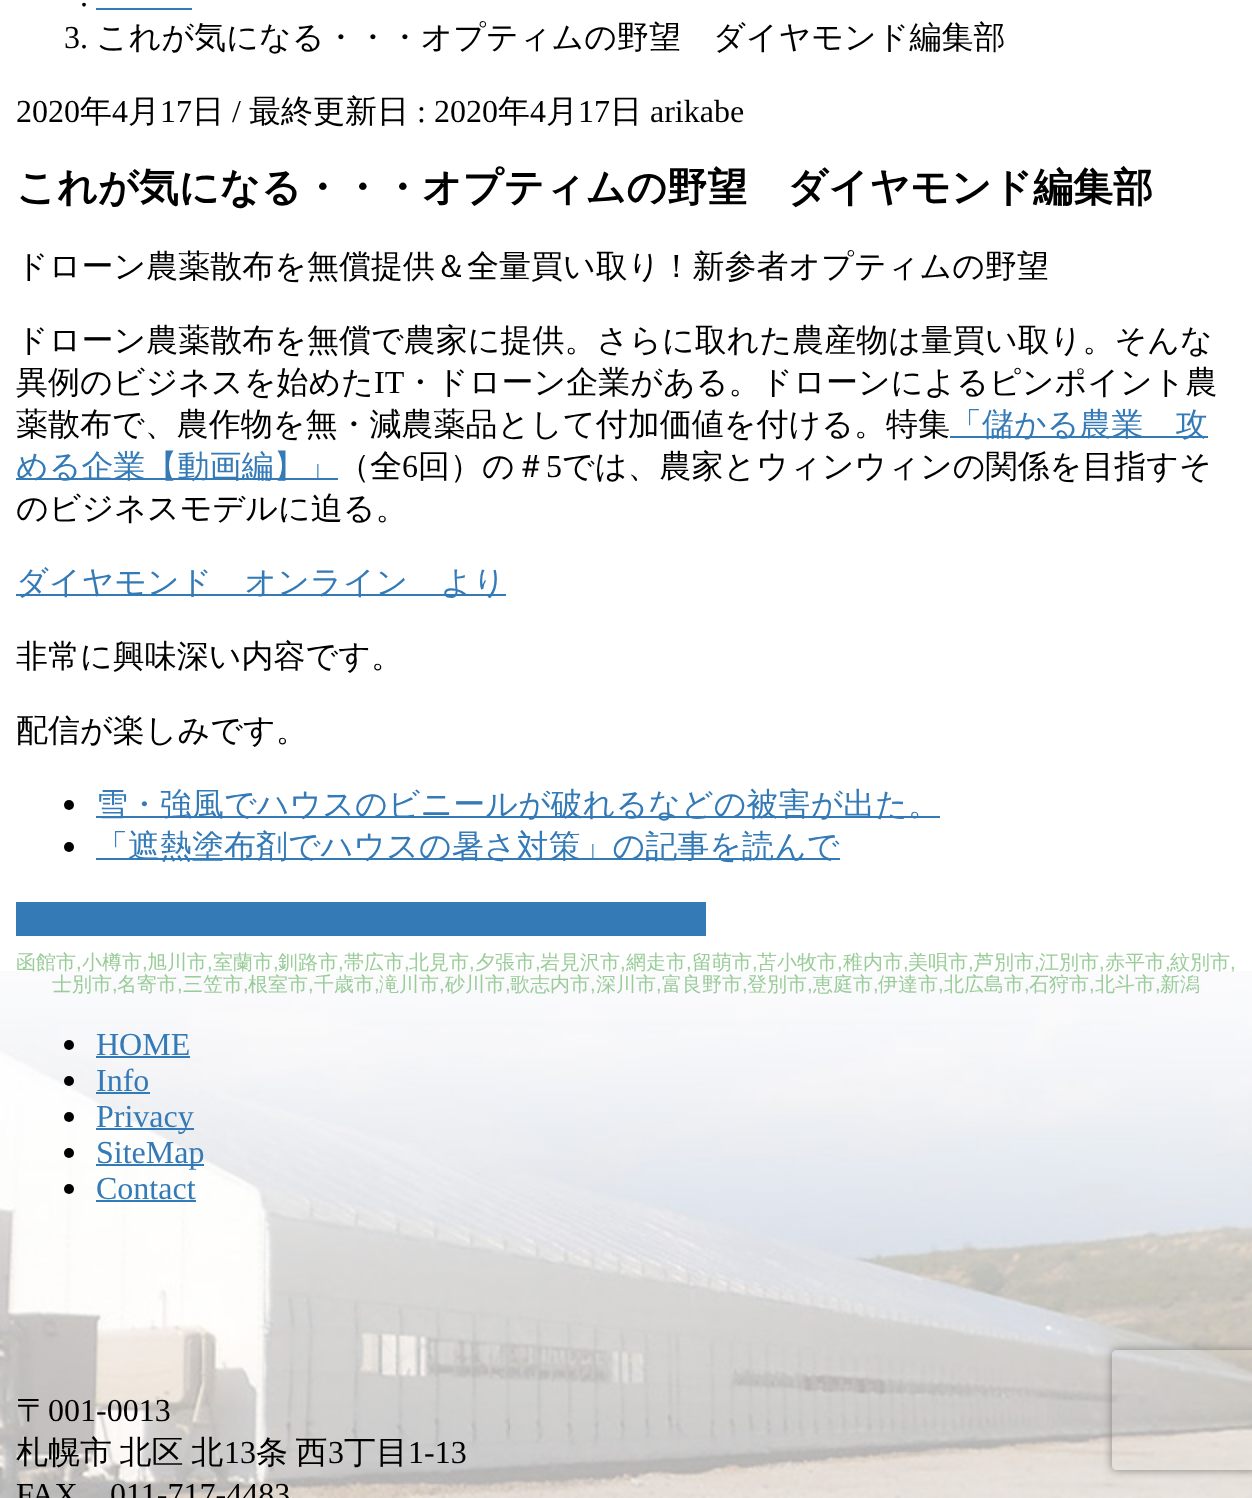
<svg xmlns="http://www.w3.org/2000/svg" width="1252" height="1498">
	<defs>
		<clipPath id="clip1"><path d="M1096 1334H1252V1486H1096ZM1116 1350H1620C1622 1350 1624 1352 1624 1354V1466C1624 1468 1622 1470 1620 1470H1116C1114 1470 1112 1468 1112 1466V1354C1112 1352 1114 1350 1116 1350Z" clip-rule="evenodd" /></clipPath>
	</defs>
	<rect width="100%" height="100%" fill="#FFFFFF" />
	<image x="0" y="971" width="1252" height="527" href="assets/img1.png" />
	<text x="80" y="6" font-family="Liberation Serif" font-size="32" fill="#000000">.</text>
	<rect x="96" y="8" width="96" height="2" fill="#337AB7" />
	<text x="64" y="48" font-family="Liberation Serif" font-size="32" fill="#000000">3.</text>
	<text x="96" y="48" font-family="WenQuanYi Zen Hei" font-size="32" font-weight="500" fill="#000000">これが気になる・・・オプティムの野望　ダイヤモンド編集部</text>
	<text x="16" y="122" font-family="Liberation Serif" font-size="32" fill="#000000">2020</text>
	<text x="80" y="122" font-family="WenQuanYi Zen Hei" font-size="32" font-weight="500" fill="#000000">年</text>
	<text x="112" y="122" font-family="Liberation Serif" font-size="32" fill="#000000">4</text>
	<text x="128" y="122" font-family="WenQuanYi Zen Hei" font-size="32" font-weight="500" fill="#000000">月</text>
	<text x="160" y="122" font-family="Liberation Serif" font-size="32" fill="#000000">17</text>
	<text x="192" y="122" font-family="WenQuanYi Zen Hei" font-size="32" font-weight="500" fill="#000000">日</text>
	<text x="232" y="122" font-family="Liberation Serif" font-size="32" fill="#000000">/</text>
	<text x="249" y="122" font-family="WenQuanYi Zen Hei" font-size="32" font-weight="500" fill="#000000">最終更新日</text>
	<text x="417" y="122" font-family="Liberation Serif" font-size="32" fill="#000000">: 2020</text>
	<text x="498" y="122" font-family="WenQuanYi Zen Hei" font-size="32" font-weight="500" fill="#000000">年</text>
	<text x="530" y="122" font-family="Liberation Serif" font-size="32" fill="#000000">4</text>
	<text x="546" y="122" font-family="WenQuanYi Zen Hei" font-size="32" font-weight="500" fill="#000000">月</text>
	<text x="578" y="122" font-family="Liberation Serif" font-size="32" fill="#000000">17</text>
	<text x="610" y="122" font-family="WenQuanYi Zen Hei" font-size="32" font-weight="500" fill="#000000">日</text>
	<text x="650" y="122" font-family="Liberation Serif" font-size="32" fill="#000000">arikabe</text>
	<text x="16" y="201" font-family="WenQuanYi Zen Hei" font-size="40" font-weight="700" fill="#000000">これが気になる・・・オプティムの野望　ダイヤモンド編集部</text>
	<g font-family="WenQuanYi Zen Hei" font-size="32" font-weight="500" fill="#000000">
		<text x="16" y="277">ドローン農薬散布を無償提供＆全量買い取り！新参者オプティムの野望</text>
		<text x="16" y="351">ドローン農薬散布を無償で農家に提供。さらに取れた農産物は量買い取り。そんな</text>
		<text x="16" y="393">異例のビジネスを始めた</text>
	</g>
	<text x="374" y="393" font-family="Liberation Serif" font-size="32" fill="#000000">IT</text>
	<g font-family="WenQuanYi Zen Hei" font-size="32" font-weight="500" fill="#000000">
		<text x="404" y="393">・ドローン企業がある。ドローンによるピンポイント農</text>
		<text x="16" y="435">薬散布で、農作物を無・減農薬品として付加価値を付ける。特集</text>
	</g>
	<rect x="950" y="436" width="258" height="2" fill="#337AB7" />
	<text x="950" y="435" font-family="WenQuanYi Zen Hei" font-size="32" font-weight="500" fill="#337AB7">「儲かる農業　攻</text>
	<rect x="16" y="478" width="322" height="2" fill="#337AB7" />
	<text x="16" y="477" font-family="WenQuanYi Zen Hei" font-size="32" font-weight="500" fill="#337AB7">める企業【動画編】」</text>
	<text x="338" y="477" font-family="WenQuanYi Zen Hei" font-size="32" font-weight="500" fill="#000000">（全</text>
	<text x="402" y="477" font-family="Liberation Serif" font-size="32" fill="#000000">6</text>
	<text x="418" y="477" font-family="WenQuanYi Zen Hei" font-size="32" font-weight="500" fill="#000000">回）の＃</text>
	<text x="546" y="477" font-family="Liberation Serif" font-size="32" fill="#000000">5</text>
	<g font-family="WenQuanYi Zen Hei" font-size="32" font-weight="500" fill="#000000">
		<text x="562" y="477">では、農家とウィンウィンの関係を目指すそ</text>
		<text x="16" y="519">のビジネスモデルに迫る。</text>
	</g>
	<rect x="16" y="594" width="490" height="2" fill="#337AB7" />
	<text x="16" y="593" font-family="WenQuanYi Zen Hei" font-size="32" font-weight="500" fill="#337AB7">ダイヤモンド　オンライン　より</text>
	<g font-family="WenQuanYi Zen Hei" font-size="32" font-weight="500" fill="#000000">
		<text x="16" y="667">非常に興味深い内容です。</text>
		<text x="16" y="741">配信が楽しみです。</text>
	</g>
	<circle cx="69" cy="805" r="5" fill="#000000" />
	<rect x="96" y="816" width="844" height="2" fill="#337AB7" />
	<text x="96" y="815" font-family="WenQuanYi Zen Hei" font-size="32" font-weight="500" fill="#337AB7">雪・強風でハウスのビニールが破れるなどの被害が出た。</text>
	<circle cx="69" cy="847" r="5" fill="#000000" />
	<rect x="96" y="858" width="744" height="2" fill="#337AB7" />
	<text x="96" y="857" font-family="WenQuanYi Zen Hei" font-size="32" font-weight="500" fill="#337AB7">「遮熱塗布剤でハウスの暑さ対策」の記事を読んで</text>
	<rect x="16" y="902" width="690" height="34" fill="#337AB7" />
	<text x="16" y="969" font-family="WenQuanYi Zen Hei" font-size="20" font-weight="500" fill="#99CC99">函館市</text>
	<text x="76" y="969" font-family="Liberation Sans" font-size="20" fill="#99CC99">,</text>
	<text x="82" y="969" font-family="WenQuanYi Zen Hei" font-size="20" font-weight="500" fill="#99CC99">小樽市</text>
	<text x="142" y="969" font-family="Liberation Sans" font-size="20" fill="#99CC99">,</text>
	<text x="147" y="969" font-family="WenQuanYi Zen Hei" font-size="20" font-weight="500" fill="#99CC99">旭川市</text>
	<text x="207" y="969" font-family="Liberation Sans" font-size="20" fill="#99CC99">,</text>
	<text x="213" y="969" font-family="WenQuanYi Zen Hei" font-size="20" font-weight="500" fill="#99CC99">室蘭市</text>
	<text x="273" y="969" font-family="Liberation Sans" font-size="20" fill="#99CC99">,</text>
	<text x="278" y="969" font-family="WenQuanYi Zen Hei" font-size="20" font-weight="500" fill="#99CC99">釧路市</text>
	<text x="338" y="969" font-family="Liberation Sans" font-size="20" fill="#99CC99">,</text>
	<text x="344" y="969" font-family="WenQuanYi Zen Hei" font-size="20" font-weight="500" fill="#99CC99">帯広市</text>
	<text x="404" y="969" font-family="Liberation Sans" font-size="20" fill="#99CC99">,</text>
	<text x="409" y="969" font-family="WenQuanYi Zen Hei" font-size="20" font-weight="500" fill="#99CC99">北見市</text>
	<text x="469" y="969" font-family="Liberation Sans" font-size="20" fill="#99CC99">,</text>
	<text x="475" y="969" font-family="WenQuanYi Zen Hei" font-size="20" font-weight="500" fill="#99CC99">夕張市</text>
	<text x="535" y="969" font-family="Liberation Sans" font-size="20" fill="#99CC99">,</text>
	<text x="540" y="969" font-family="WenQuanYi Zen Hei" font-size="20" font-weight="500" fill="#99CC99">岩見沢市</text>
	<text x="620" y="969" font-family="Liberation Sans" font-size="20" fill="#99CC99">,</text>
	<text x="626" y="969" font-family="WenQuanYi Zen Hei" font-size="20" font-weight="500" fill="#99CC99">網走市</text>
	<text x="686" y="969" font-family="Liberation Sans" font-size="20" fill="#99CC99">,</text>
	<text x="692" y="969" font-family="WenQuanYi Zen Hei" font-size="20" font-weight="500" fill="#99CC99">留萌市</text>
	<text x="752" y="969" font-family="Liberation Sans" font-size="20" fill="#99CC99">,</text>
	<text x="757" y="969" font-family="WenQuanYi Zen Hei" font-size="20" font-weight="500" fill="#99CC99">苫小牧市</text>
	<text x="837" y="969" font-family="Liberation Sans" font-size="20" fill="#99CC99">,</text>
	<text x="843" y="969" font-family="WenQuanYi Zen Hei" font-size="20" font-weight="500" fill="#99CC99">稚内市</text>
	<text x="903" y="969" font-family="Liberation Sans" font-size="20" fill="#99CC99">,</text>
	<text x="908" y="969" font-family="WenQuanYi Zen Hei" font-size="20" font-weight="500" fill="#99CC99">美唄市</text>
	<text x="968" y="969" font-family="Liberation Sans" font-size="20" fill="#99CC99">,</text>
	<text x="974" y="969" font-family="WenQuanYi Zen Hei" font-size="20" font-weight="500" fill="#99CC99">芦別市</text>
	<text x="1034" y="969" font-family="Liberation Sans" font-size="20" fill="#99CC99">,</text>
	<text x="1039" y="969" font-family="WenQuanYi Zen Hei" font-size="20" font-weight="500" fill="#99CC99">江別市</text>
	<text x="1099" y="969" font-family="Liberation Sans" font-size="20" fill="#99CC99">,</text>
	<text x="1105" y="969" font-family="WenQuanYi Zen Hei" font-size="20" font-weight="500" fill="#99CC99">赤平市</text>
	<text x="1165" y="969" font-family="Liberation Sans" font-size="20" fill="#99CC99">,</text>
	<text x="1170" y="969" font-family="WenQuanYi Zen Hei" font-size="20" font-weight="500" fill="#99CC99">紋別市</text>
	<text x="1230" y="969" font-family="Liberation Sans" font-size="20" fill="#99CC99">,</text>
	<text x="52" y="991" font-family="WenQuanYi Zen Hei" font-size="20" font-weight="500" fill="#99CC99">士別市</text>
	<text x="112" y="991" font-family="Liberation Sans" font-size="20" fill="#99CC99">,</text>
	<text x="117" y="991" font-family="WenQuanYi Zen Hei" font-size="20" font-weight="500" fill="#99CC99">名寄市</text>
	<text x="177" y="991" font-family="Liberation Sans" font-size="20" fill="#99CC99">,</text>
	<text x="183" y="991" font-family="WenQuanYi Zen Hei" font-size="20" font-weight="500" fill="#99CC99">三笠市</text>
	<text x="243" y="991" font-family="Liberation Sans" font-size="20" fill="#99CC99">,</text>
	<text x="248" y="991" font-family="WenQuanYi Zen Hei" font-size="20" font-weight="500" fill="#99CC99">根室市</text>
	<text x="308" y="991" font-family="Liberation Sans" font-size="20" fill="#99CC99">,</text>
	<text x="314" y="991" font-family="WenQuanYi Zen Hei" font-size="20" font-weight="500" fill="#99CC99">千歳市</text>
	<text x="374" y="991" font-family="Liberation Sans" font-size="20" fill="#99CC99">,</text>
	<text x="379" y="991" font-family="WenQuanYi Zen Hei" font-size="20" font-weight="500" fill="#99CC99">滝川市</text>
	<text x="439" y="991" font-family="Liberation Sans" font-size="20" fill="#99CC99">,</text>
	<text x="445" y="991" font-family="WenQuanYi Zen Hei" font-size="20" font-weight="500" fill="#99CC99">砂川市</text>
	<text x="505" y="991" font-family="Liberation Sans" font-size="20" fill="#99CC99">,</text>
	<text x="510" y="991" font-family="WenQuanYi Zen Hei" font-size="20" font-weight="500" fill="#99CC99">歌志内市</text>
	<text x="590" y="991" font-family="Liberation Sans" font-size="20" fill="#99CC99">,</text>
	<text x="596" y="991" font-family="WenQuanYi Zen Hei" font-size="20" font-weight="500" fill="#99CC99">深川市</text>
	<text x="656" y="991" font-family="Liberation Sans" font-size="20" fill="#99CC99">,</text>
	<text x="662" y="991" font-family="WenQuanYi Zen Hei" font-size="20" font-weight="500" fill="#99CC99">富良野市</text>
	<text x="742" y="991" font-family="Liberation Sans" font-size="20" fill="#99CC99">,</text>
	<text x="747" y="991" font-family="WenQuanYi Zen Hei" font-size="20" font-weight="500" fill="#99CC99">登別市</text>
	<text x="807" y="991" font-family="Liberation Sans" font-size="20" fill="#99CC99">,</text>
	<text x="813" y="991" font-family="WenQuanYi Zen Hei" font-size="20" font-weight="500" fill="#99CC99">恵庭市</text>
	<text x="873" y="991" font-family="Liberation Sans" font-size="20" fill="#99CC99">,</text>
	<text x="878" y="991" font-family="WenQuanYi Zen Hei" font-size="20" font-weight="500" fill="#99CC99">伊達市</text>
	<text x="938" y="991" font-family="Liberation Sans" font-size="20" fill="#99CC99">,</text>
	<text x="944" y="991" font-family="WenQuanYi Zen Hei" font-size="20" font-weight="500" fill="#99CC99">北広島市</text>
	<text x="1024" y="991" font-family="Liberation Sans" font-size="20" fill="#99CC99">,</text>
	<text x="1029" y="991" font-family="WenQuanYi Zen Hei" font-size="20" font-weight="500" fill="#99CC99">石狩市</text>
	<text x="1089" y="991" font-family="Liberation Sans" font-size="20" fill="#99CC99">,</text>
	<text x="1095" y="991" font-family="WenQuanYi Zen Hei" font-size="20" font-weight="500" fill="#99CC99">北斗市</text>
	<text x="1155" y="991" font-family="Liberation Sans" font-size="20" fill="#99CC99">,</text>
	<text x="1160" y="991" font-family="WenQuanYi Zen Hei" font-size="20" font-weight="500" fill="#99CC99">新潟</text>
	<circle cx="69" cy="1045" r="5" fill="#000000" />
	<text x="96" y="1055" font-family="Liberation Serif" font-size="32" fill="#337AB7">HOME</text>
	<rect x="96" y="1056" width="94" height="2" fill="#337AB7" />
	<circle cx="69" cy="1081" r="5" fill="#000000" />
	<text x="96" y="1091" font-family="Liberation Serif" font-size="32" fill="#337AB7">Info</text>
	<rect x="96" y="1092" width="54" height="2" fill="#337AB7" />
	<circle cx="69" cy="1117" r="5" fill="#000000" />
	<rect x="96" y="1128" width="98" height="2" fill="#337AB7" />
	<text x="96" y="1127" font-family="Liberation Serif" font-size="32" fill="#337AB7">Privacy</text>
	<circle cx="69" cy="1153" r="5" fill="#000000" />
	<rect x="96" y="1164" width="108" height="2" fill="#337AB7" />
	<text x="96" y="1163" font-family="Liberation Serif" font-size="32" fill="#337AB7">SiteMap</text>
	<circle cx="69" cy="1189" r="5" fill="#000000" />
	<text x="96" y="1199" font-family="Liberation Serif" font-size="32" fill="#337AB7">Contact</text>
	<rect x="96" y="1200" width="100" height="2" fill="#337AB7" />
	<text x="16" y="1421" font-family="WenQuanYi Zen Hei" font-size="32" font-weight="500" fill="#000000">〒</text>
	<text x="48" y="1421" font-family="Liberation Serif" font-size="32" fill="#000000">001-0013</text>
	<text x="16" y="1463" word-spacing="-2" font-family="WenQuanYi Zen Hei" font-size="32" font-weight="500" fill="#000000">札幌市 北区 北</text>
	<text x="224" y="1463" font-family="Liberation Serif" font-size="32" fill="#000000">13</text>
	<text x="256" y="1463" word-spacing="-2" font-family="WenQuanYi Zen Hei" font-size="32" font-weight="500" fill="#000000">条 西</text>
	<text x="328" y="1463" font-family="Liberation Serif" font-size="32" fill="#000000">3</text>
	<text x="344" y="1463" font-family="WenQuanYi Zen Hei" font-size="32" font-weight="500" fill="#000000">丁目</text>
	<g font-family="Liberation Serif" font-size="32" fill="#000000">
		<text x="408" y="1463">1-13</text>
		<text x="16" y="1505">FAX</text>
		<text x="110" y="1505">011-717-4483</text>
	</g>
	<g clip-path="url(#clip1)">
		<rect x="1112" y="1350" width="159" height="120" rx="4" fill="#808080" filter="blur(5px)" />
	</g>
</svg>
